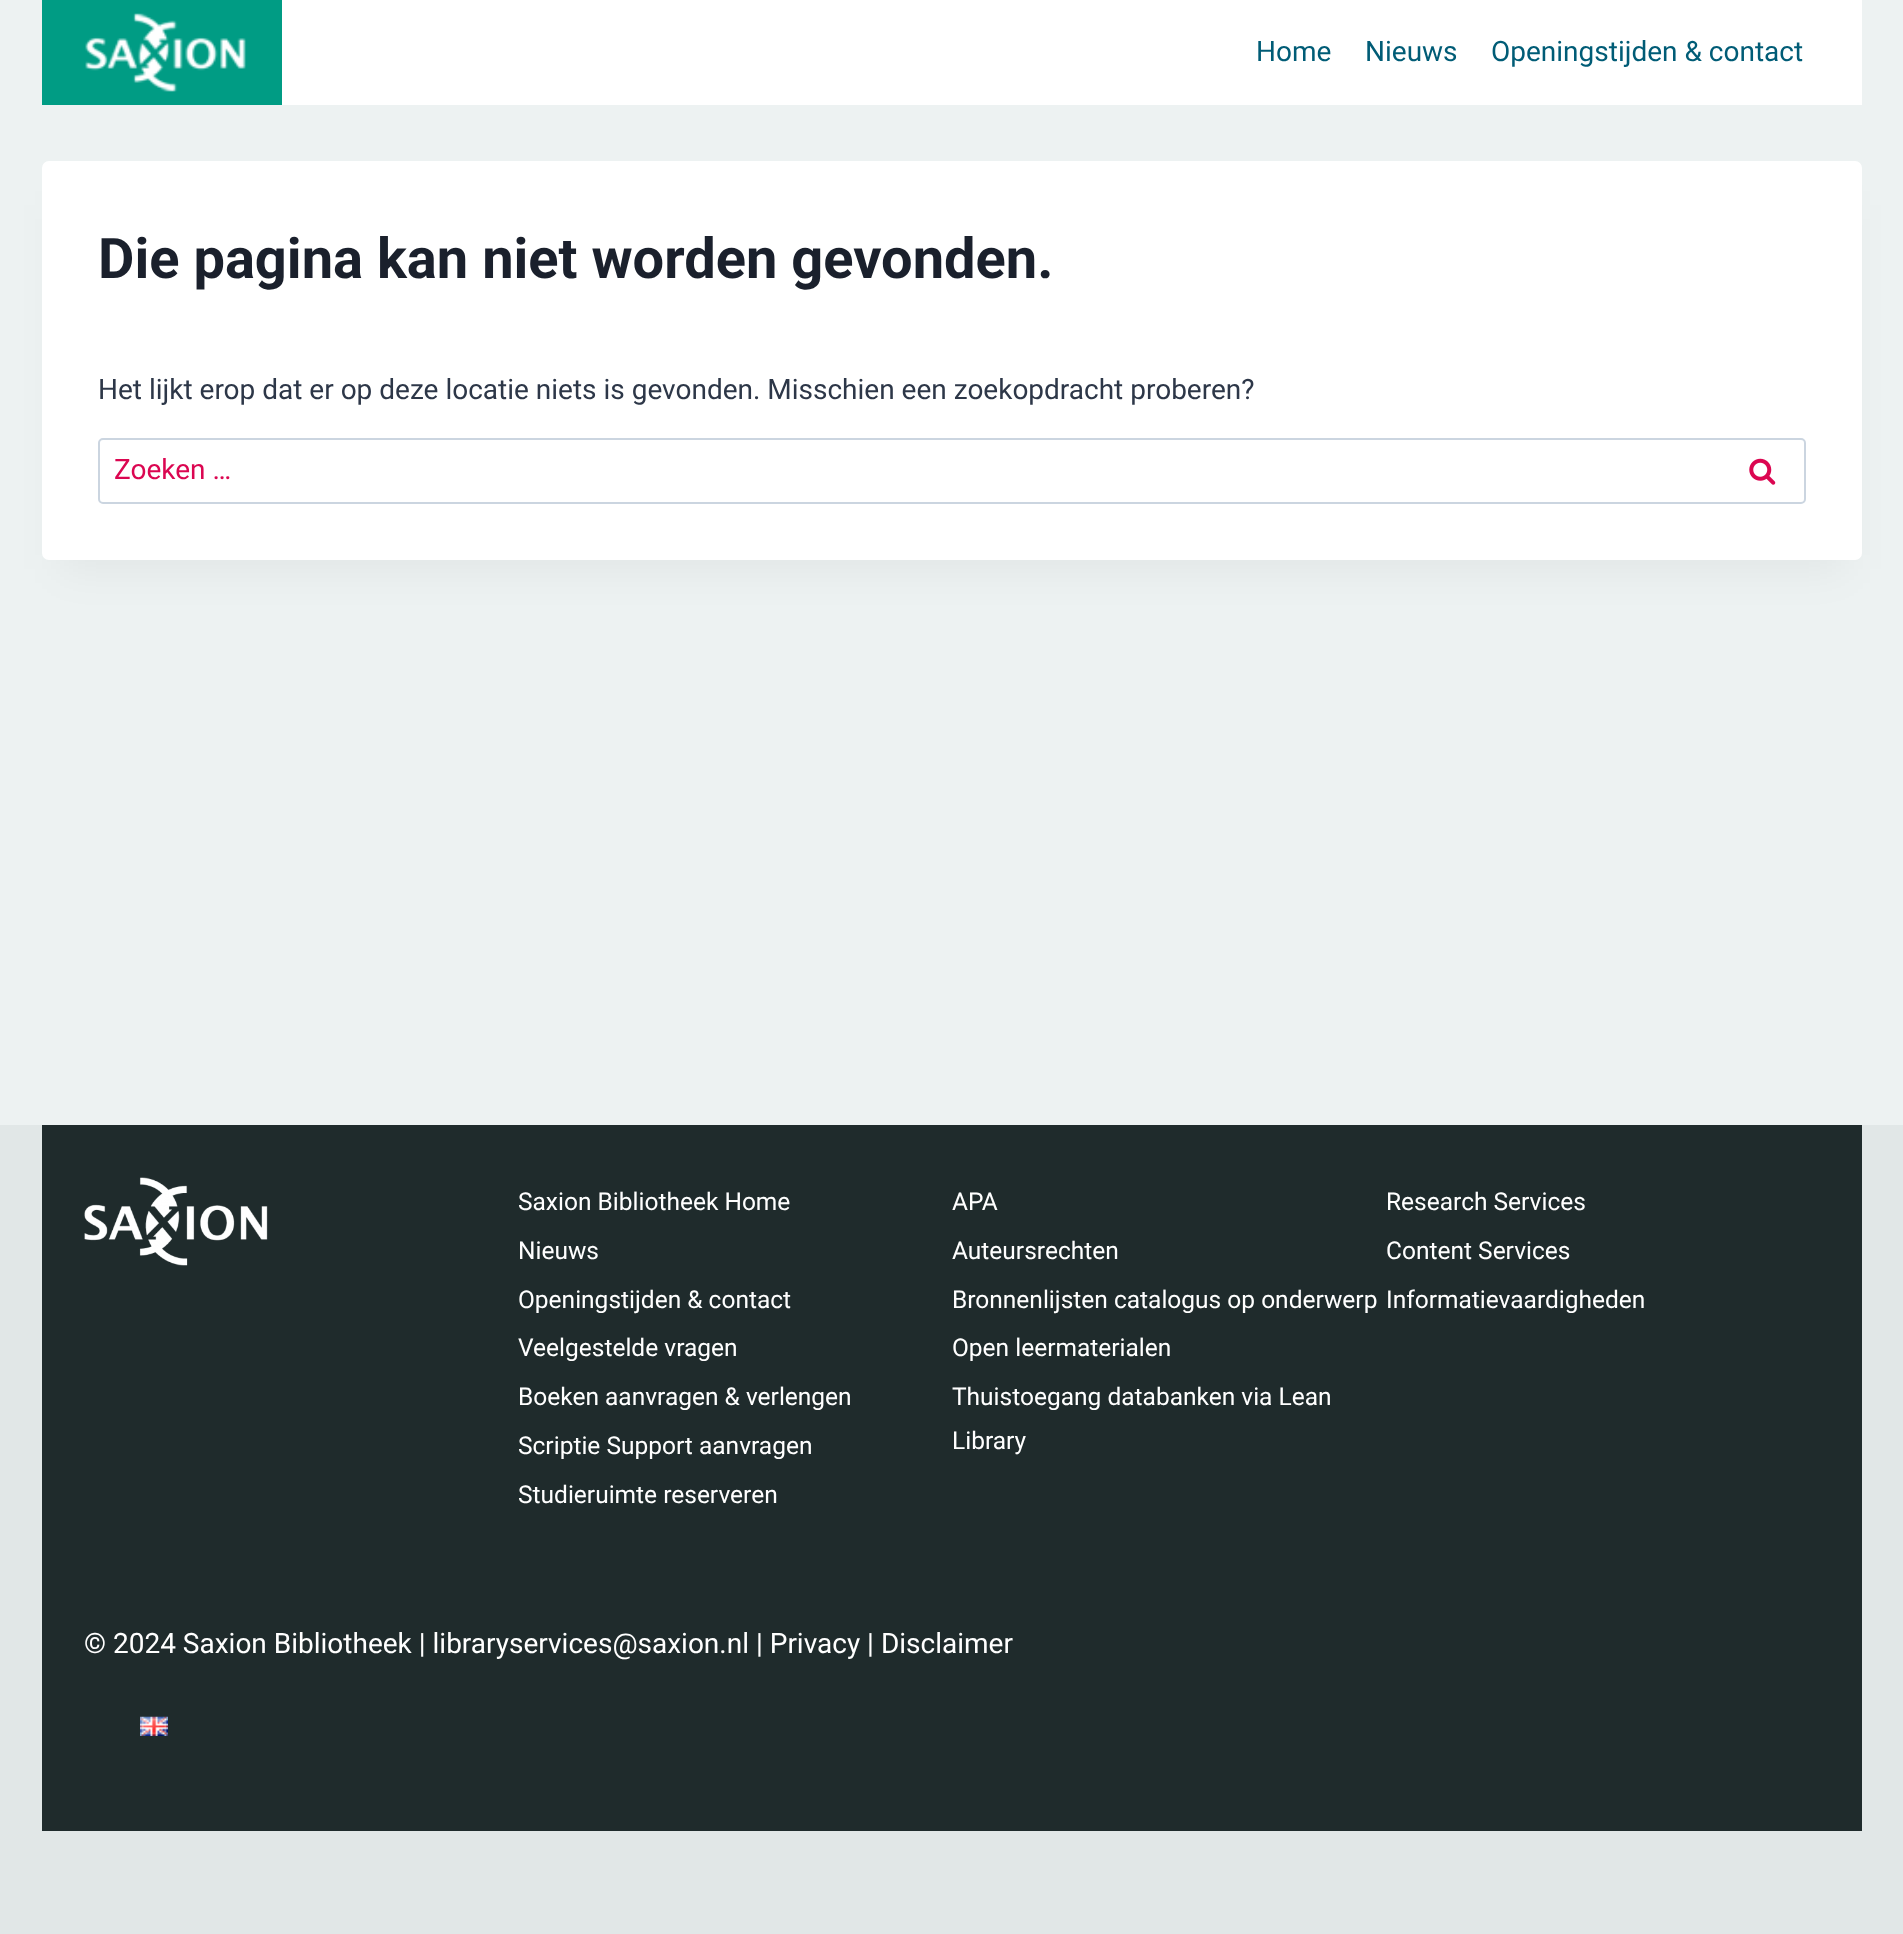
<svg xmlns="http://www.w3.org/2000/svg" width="1903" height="1934">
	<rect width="100%" height="100%" fill="#EDF2F2" />
	<rect x="282" y="0" width="1580" height="105" fill="#FFFFFF" />
	<image x="42" y="0" width="240" height="105" href="assets/img1.png" />
	<g font-family="Roboto" font-size="28" fill="#005C76">
		<text x="1256" y="61">Home</text>
		<text x="1365" y="61">Nieuws</text>
		<text x="1491" y="61">Openingstijden &amp; contact</text>
	</g>
	<rect x="60" y="205" width="1785" height="364" fill="#000000" fill-opacity="0.05" filter="blur(22px)" />
	<rect x="42" y="161" width="1820" height="399" rx="7" fill="#FFFFFF" />
	<text x="98" y="278" font-family="Roboto" font-size="56" font-weight="700" fill="#1A202C">Die pagina kan niet worden gevonden.</text>
	<text x="98" y="399" font-family="Roboto" font-size="28" fill="#2D3748">Het lijkt erop dat er op deze locatie niets is gevonden. Misschien een zoekopdracht proberen?</text>
	<rect x="99" y="439" width="1706" height="64" rx="4" fill="none" stroke="#CBD5E0" stroke-width="2" />
	<text x="114" y="479" font-family="Roboto" font-size="28" fill="#DB0651">Zoeken …</text>
	<image x="1749" y="458" width="27" height="27" href="assets/img2.png" />
	<rect x="0" y="1125" width="1903" height="809" fill="#E1E7E7" />
	<rect x="42" y="1125" width="1820" height="706" fill="#1F2B2C" />
	<image x="84" y="1177" width="184" height="89" href="assets/img3.png" />
	<g font-family="Roboto" font-size="24.5" fill="#FFFFFF">
		<text x="518" y="1210">Saxion Bibliotheek Home</text>
		<text x="518" y="1259">Nieuws</text>
		<text x="518" y="1308">Openingstijden &amp; contact</text>
		<text x="518" y="1356">Veelgestelde vragen</text>
		<text x="518" y="1405">Boeken aanvragen &amp; verlengen</text>
		<text x="518" y="1454">Scriptie Support aanvragen</text>
		<text x="518" y="1503">Studieruimte reserveren</text>
		<text x="952" y="1210">APA</text>
		<text x="952" y="1259">Auteursrechten</text>
		<text x="952" y="1308">Bronnenlijsten catalogus op onderwerp</text>
		<text x="952" y="1356">Open leermaterialen</text>
		<text x="952" y="1405">Thuistoegang databanken via Lean</text>
		<text x="952" y="1449">Library</text>
		<text x="1386" y="1210">Research Services</text>
		<text x="1386" y="1259">Content Services</text>
		<text x="1386" y="1308">Informatievaardigheden</text>
	</g>
	<text x="84" y="1653" font-family="Roboto" font-size="28" fill="#FFFFFF">© 2024 Saxion Bibliotheek | libraryservices@saxion.nl | Privacy | Disclaimer</text>
	<image x="140" y="1716" width="28" height="20" href="assets/img4.png" />
</svg>
